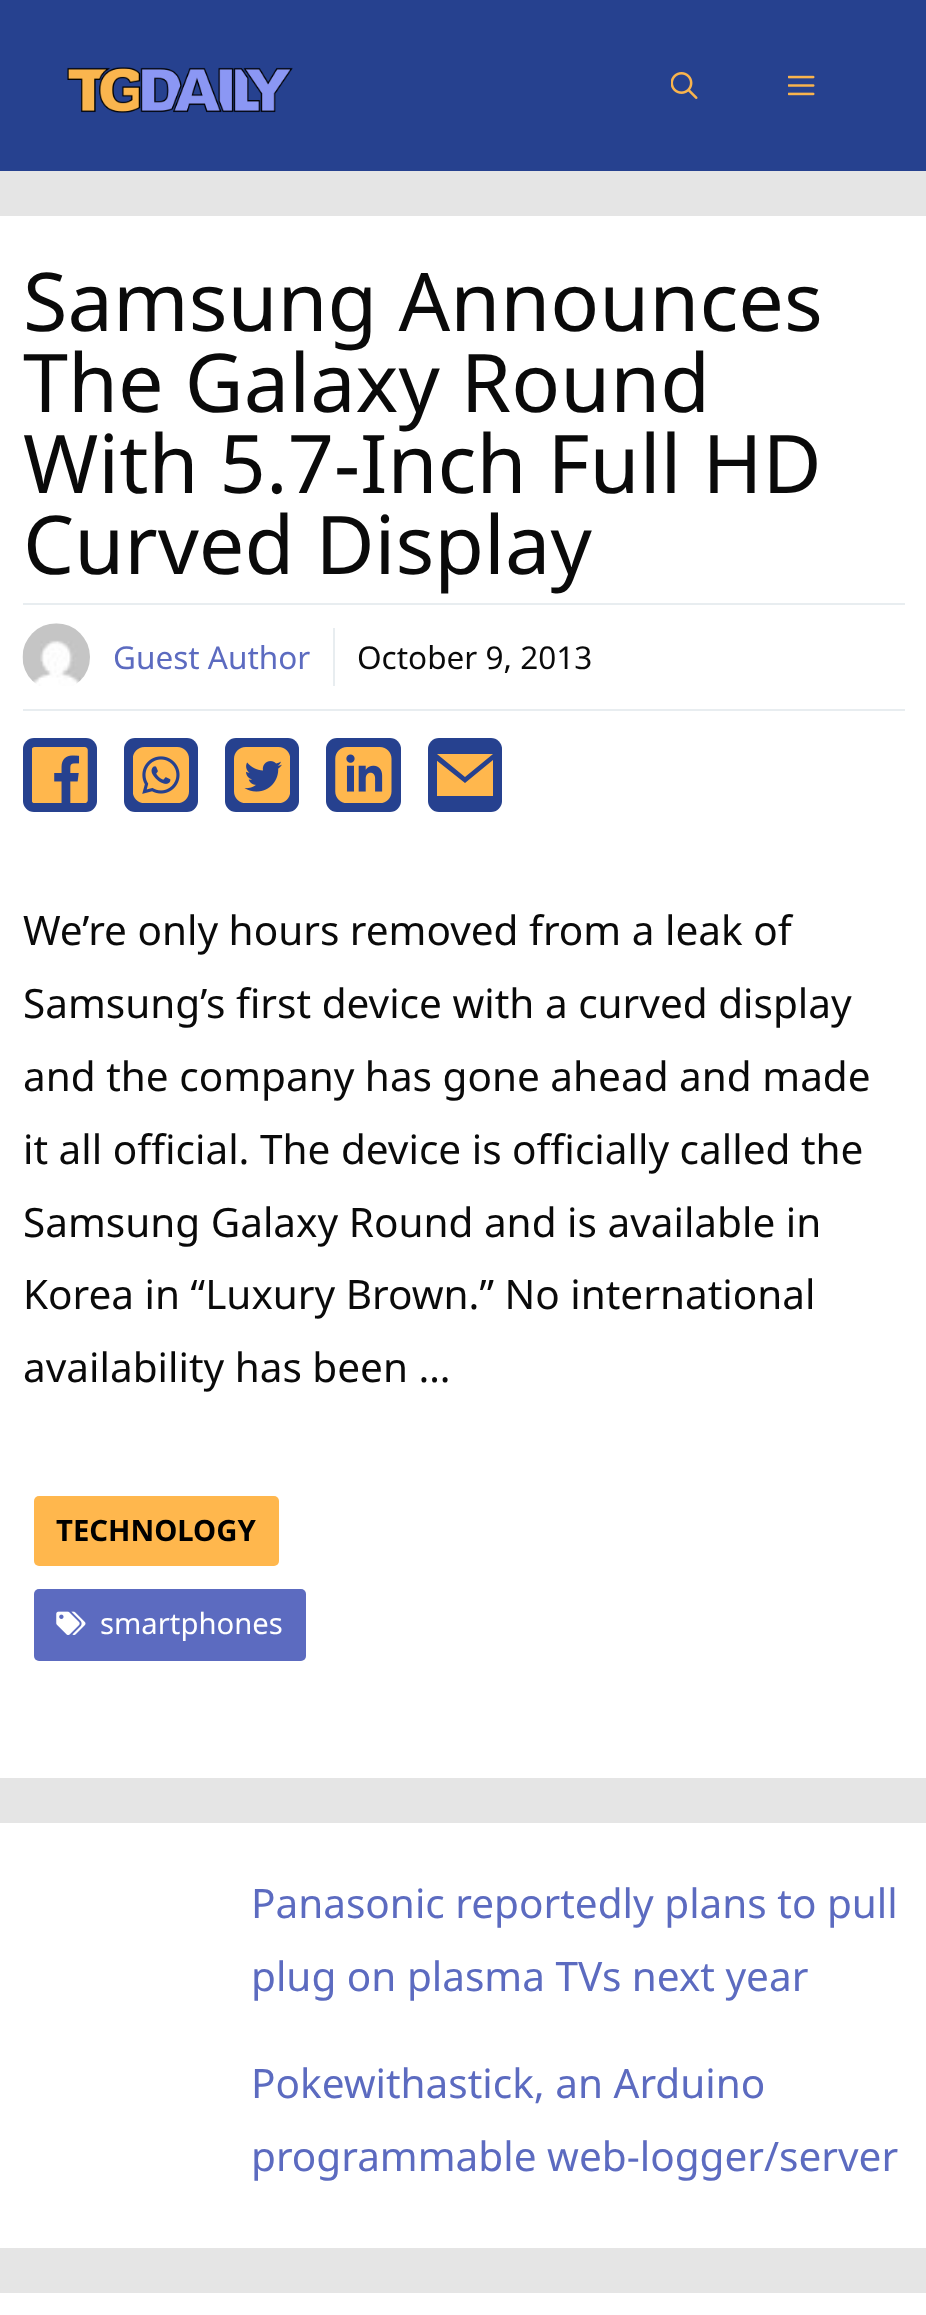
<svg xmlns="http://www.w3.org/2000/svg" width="926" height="2315">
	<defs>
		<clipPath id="clip1"><rect x="437" y="747" width="56" height="56" /></clipPath>
	</defs>
	<rect width="100%" height="100%" fill="#E5E5E5" />
	<rect x="0" y="0" width="926" height="171" fill="#26418F" />
	<image x="67" y="67" width="226" height="46" href="assets/img1.png" />
	<image x="671" y="72" width="27" height="27" href="assets/img2.png" />
	<image x="788" y="75" width="27" height="21" href="assets/img3.png" />
	<rect x="0" y="216" width="926" height="1562" fill="#FFFFFF" />
	<g font-family="Noto Sans" font-size="81" fill="#0A0A0A">
		<text x="23" y="331">Samsung Announces</text>
		<text x="23" y="412">The Galaxy Round</text>
		<text x="23" y="493">With 5.7-Inch Full HD</text>
		<text x="23" y="574">Curved Display</text>
	</g>
	<rect x="23" y="603" width="882" height="2" fill="#E8EDF0" />
	<rect x="23" y="709" width="882" height="2" fill="#E8EDF0" />
	<image x="22" y="623" width="68" height="63" href="assets/img4.png" />
	<text x="113" y="669" font-family="Noto Sans" font-size="31.5" fill="#5C6BC0">Guest Author</text>
	<rect x="333" y="628" width="2" height="58" fill="#E8EDF0" />
	<text x="357" y="669" font-family="Noto Sans" font-size="31.5" fill="#0A0A0A">October 9, 2013</text>
	<rect x="23" y="738" width="74" height="74" rx="11" fill="#26418F" />
	<image x="32" y="747" width="56" height="56" href="assets/img5.png" />
	<rect x="124" y="738" width="74" height="74" rx="11" fill="#26418F" />
	<image x="133" y="747" width="56" height="56" href="assets/img6.png" />
	<rect x="225" y="738" width="74" height="74" rx="11" fill="#26418F" />
	<image x="234" y="747" width="56" height="56" href="assets/img7.png" />
	<rect x="326" y="738" width="75" height="74" rx="11" fill="#26418F" />
	<image x="335" y="747" width="57" height="56" href="assets/img8.png" />
	<rect x="428" y="738" width="74" height="74" rx="11" fill="#26418F" />
	<g clip-path="url(#clip1)">
		<path d="M465 777L437 754H493ZM465 783L436 760V796H493V760Z" fill="#FFB74D" />
	</g>
	<g font-family="Noto Sans" font-size="40.5" fill="#0A0A0A">
		<text x="23" y="945">We’re only hours removed from a leak of</text>
		<text x="23" y="1018">Samsung’s first device with a curved display</text>
		<text x="23" y="1091">and the company has gone ahead and made</text>
		<text x="23" y="1164">it all official. The device is officially called the</text>
		<text x="23" y="1237">Samsung Galaxy Round and is available in</text>
		<text x="23" y="1309">Korea in “Luxury Brown.” No international</text>
		<text x="23" y="1382">availability has been …</text>
	</g>
	<rect x="34" y="1496" width="245" height="70" rx="5" fill="#FFB74D" />
	<text x="56" y="1541" font-family="Noto Sans" font-size="29.25" font-weight="700" fill="#000000">TECHNOLOGY</text>
	<rect x="34" y="1589" width="272" height="72" rx="5" fill="#5C6BC0" />
	<image x="56" y="1611" width="30" height="24" href="assets/img9.png" />
	<text x="100" y="1634" font-family="Noto Sans" font-size="29.25" fill="#FFFFFF">smartphones</text>
	<rect x="0" y="1823" width="926" height="425" fill="#FFFFFF" />
	<g font-family="Noto Sans" font-size="40.5" fill="#5C6BC0">
		<text x="251" y="1918">Panasonic reportedly plans to pull</text>
		<text x="251" y="1991">plug on plasma TVs next year</text>
		<text x="251" y="2098">Pokewithastick, an Arduino</text>
		<text x="251" y="2171">programmable web-logger/server</text>
	</g>
	<rect x="0" y="2293" width="926" height="22" fill="#FFFFFF" />
</svg>
